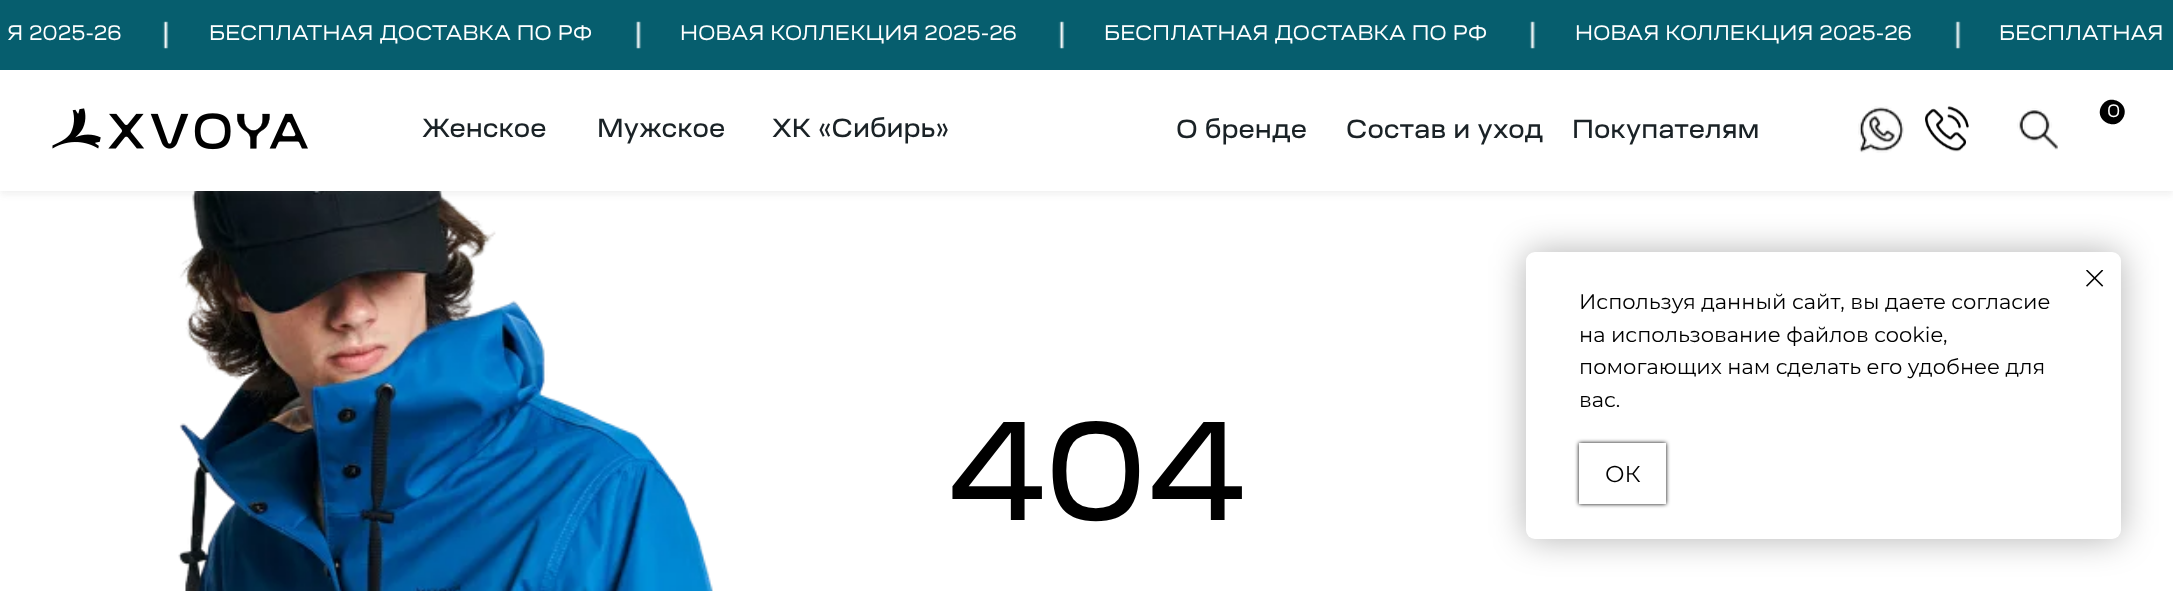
<svg xmlns="http://www.w3.org/2000/svg" width="2173" height="591">
	<defs>
		<clipPath id="clip1"><path d="M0 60H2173V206H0ZM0 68H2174V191H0Z" clip-rule="evenodd" /></clipPath>
		<clipPath id="clip2"><path d="M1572 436H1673V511H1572ZM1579 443H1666V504H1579Z" clip-rule="evenodd" /></clipPath>
	</defs>
	<rect width="100%" height="100%" fill="#FFFFFF" />
	<image x="178" y="191" width="535" height="400" href="assets/img9.png" />
	<g clip-path="url(#clip1)">
		<rect x="0" y="72" width="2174" height="122" fill="#626262" fill-opacity="0.1" filter="blur(3.5px)" />
	</g>
	<rect x="0" y="0" width="2173" height="70" fill="#065E6E" />
	<text x="7" y="40" font-family="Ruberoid" font-size="21" fill="#FFFFFF">Я 2025-26</text>
	<image x="162" y="21" width="7" height="28" href="assets/img1.png" />
	<text x="209" y="40" font-family="Ruberoid" font-size="21" fill="#FFFFFF">БЕСПЛАТНАЯ ДОСТАВКА ПО РФ</text>
	<image x="634" y="21" width="8" height="28" href="assets/img2.png" />
	<text x="680" y="40" font-family="Ruberoid" font-size="21" fill="#FFFFFF">НОВАЯ КОЛЛЕКЦИЯ 2025-26</text>
	<image x="1058" y="21" width="7" height="28" href="assets/img1.png" />
	<text x="1104" y="40" font-family="Ruberoid" font-size="21" fill="#FFFFFF">БЕСПЛАТНАЯ ДОСТАВКА ПО РФ</text>
	<image x="1529" y="21" width="7" height="28" href="assets/img3.png" />
	<text x="1575" y="40" font-family="Ruberoid" font-size="21" fill="#FFFFFF">НОВАЯ КОЛЛЕКЦИЯ 2025-26</text>
	<image x="1954" y="21" width="7" height="28" href="assets/img4.png" />
	<text x="1999" y="40" font-family="Ruberoid" font-size="21" fill="#FFFFFF">БЕСПЛАТНАЯ</text>
	<path d="M2101.5 106C2109.5 92 2131 104 2123 118C2115 132 2093.5 120 2101.5 106Z" fill="#000000" />
	<image x="52" y="108" width="256" height="42" href="assets/img5.png" />
	<g font-family="Ruberoid" font-size="26.25" font-weight="500" fill="#1A2226">
		<text x="422" y="137">Женское</text>
		<text x="597" y="137">Мужское</text>
		<text x="772" y="137">ХК «Сибирь»</text>
		<text x="1176" y="138">О бренде</text>
		<text x="1346" y="138">Состав и уход</text>
		<text x="1572" y="138">Покупателям</text>
	</g>
	<image x="1858" y="106" width="46" height="47" href="assets/img6.png" />
	<image x="1925" y="106" width="44" height="46" href="assets/img7.png" />
	<image x="2017" y="108" width="41" height="42" href="assets/img8.png" />
	<text x="2107" y="117" font-family="Ruberoid" font-size="18" fill="#FFFFFF">0</text>
	<text x="947" y="520" font-family="Ruberoid" font-size="140" font-weight="500" fill="#000000">404</text>
	<rect x="1526" y="252" width="595" height="287" rx="9" fill="#000000" fill-opacity="0.3" filter="blur(17.5px)" />
	<rect x="1526" y="252" width="595" height="287" rx="9" fill="#FFFFFF" />
	<image x="2086" y="270" width="18" height="17" href="assets/img10.png" />
	<g font-family="Montserrat" font-size="21" fill="#000000">
		<text x="1579" y="309">Используя данный сайт, вы даете согласие</text>
		<text x="1579" y="342">на использование файлов cookie,</text>
		<text x="1579" y="374">помогающих нам сделать его удобнее для</text>
		<text x="1579" y="407">вас.</text>
	</g>
	<g clip-path="url(#clip2)">
		<rect x="1579" y="443" width="87" height="61" fill="#000000" filter="blur(2px)" />
	</g>
	<text x="1605" y="482" font-family="Montserrat" font-size="23" fill="#000000">ОК</text>
</svg>
